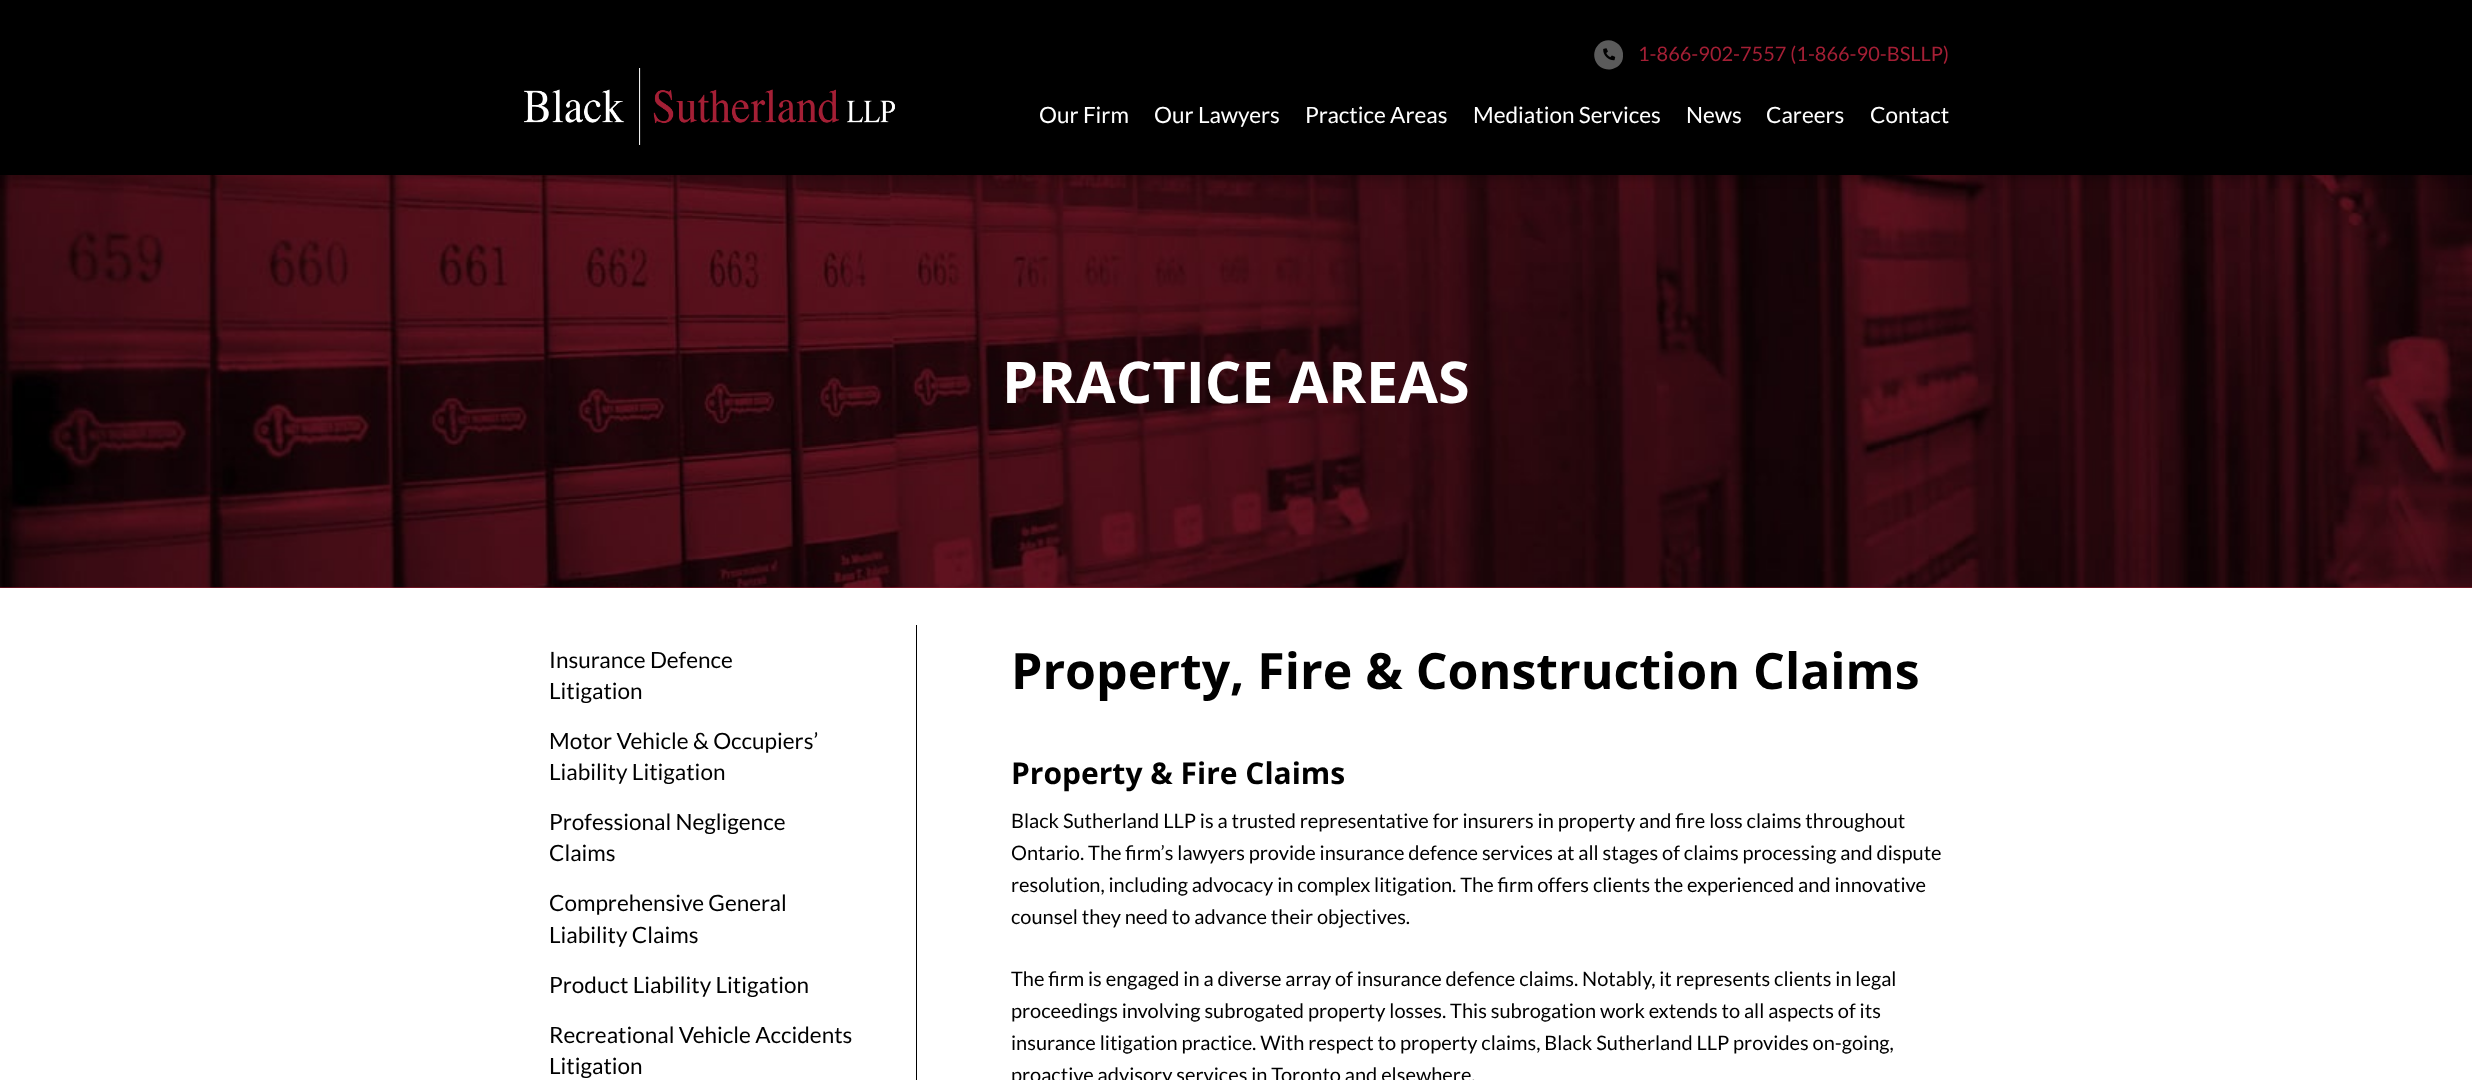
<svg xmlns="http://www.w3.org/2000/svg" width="2472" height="1080">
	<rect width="100%" height="100%" fill="#FFFFFF" />
	<rect x="0" y="587" width="2472" height="1" fill="#A41F35" />
	<image x="0" y="175" width="2472" height="413" href="assets/img3.png" />
	<rect x="0" y="5" width="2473" height="175" fill="#000000" fill-opacity="0.2" filter="blur(4px)" />
	<rect x="0" y="0" width="2472" height="175" fill="#000000" />
	<image x="524" y="68" width="371" height="77" href="assets/img1.png" />
	<path d="M1598.5 44.5C1608 35 1624.5 43 1623 56.5C1623 60 1621.5 63 1619 65.5C1616.5 67.5 1613.5 69 1610 69.5C1596.5 70.5 1589 54.5 1598.5 44.5Z" fill="#5B5B5B" />
	<image x="1603" y="48" width="13" height="13" href="assets/img2.png" />
	<text x="1638" y="61" font-family="Lato" font-size="20" fill="#A41F35">1-866-902-7557 (1-866-90-BSLLP)</text>
	<g font-family="Lato" font-size="22.5" fill="#FFFFFF">
		<text x="1039" y="123">Our Firm</text>
		<text x="1154" y="123">Our Lawyers</text>
		<text x="1305" y="123">Practice Areas</text>
		<text x="1473" y="123">Mediation Services</text>
		<text x="1686" y="123">News</text>
		<text x="1766" y="123">Careers</text>
		<text x="1870" y="123">Contact</text>
	</g>
	<text x="1002" y="403" font-family="Open Sans" font-size="57.5" font-weight="700" fill="#FFFFFF">PRACTICE AREAS</text>
	<g font-family="Lato" font-size="22.5" fill="#000000">
		<text x="549" y="668">Insurance Defence</text>
		<text x="549" y="699">Litigation</text>
		<text x="549" y="749">Motor Vehicle &amp; Occupiers’</text>
		<text x="549" y="780">Liability Litigation</text>
		<text x="549" y="830">Professional Negligence</text>
		<text x="549" y="861">Claims</text>
		<text x="549" y="911">Comprehensive General</text>
		<text x="549" y="943">Liability Claims</text>
		<text x="549" y="993">Product Liability Litigation</text>
		<text x="549" y="1043">Recreational Vehicle Accidents</text>
		<text x="549" y="1074">Litigation</text>
	</g>
	<rect x="916" y="625" width="1" height="455" fill="#000000" />
	<text x="1011" y="689" font-family="Open Sans" font-size="50" font-weight="700" fill="#000000">Property, Fire &amp; Construction Claims</text>
	<text x="1011" y="784" font-family="Open Sans" font-size="30" font-weight="700" fill="#000000">Property &amp; Fire Claims</text>
	<g font-family="Lato" font-size="20" fill="#000000">
		<text x="1011" y="828">Black Sutherland LLP is a trusted representative for insurers in property and fire loss claims throughout</text>
		<text x="1011" y="860">Ontario. The firm’s lawyers provide insurance defence services at all stages of claims processing and dispute</text>
		<text x="1011" y="892">resolution, including advocacy in complex litigation. The firm offers clients the experienced and innovative</text>
		<text x="1011" y="924">counsel they need to advance their objectives.</text>
		<text x="1011" y="986">The firm is engaged in a diverse array of insurance defence claims. Notably, it represents clients in legal</text>
		<text x="1011" y="1018">proceedings involving subrogated property losses. This subrogation work extends to all aspects of its</text>
		<text x="1011" y="1050">insurance litigation practice. With respect to property claims, Black Sutherland LLP provides on-going,</text>
		<text x="1011" y="1082">proactive advisory services in Toronto and elsewhere.</text>
	</g>
</svg>
